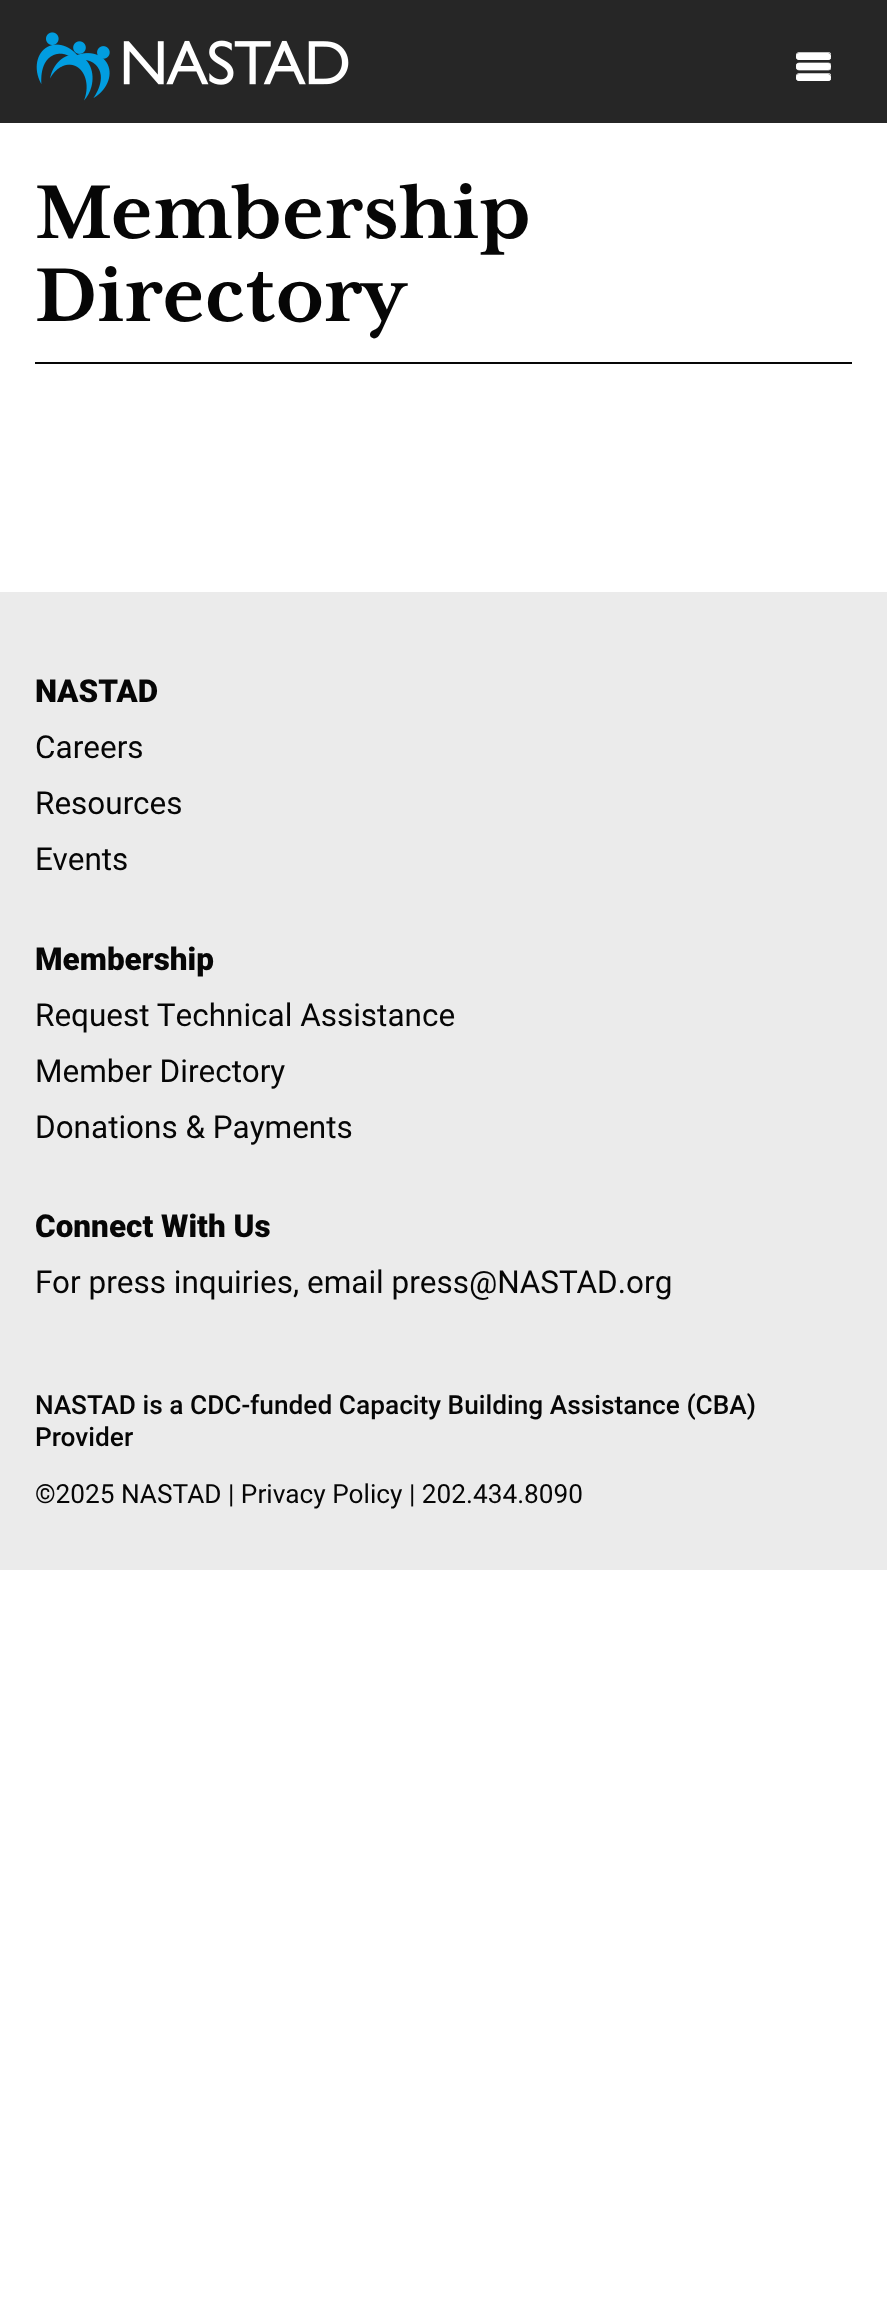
<svg xmlns="http://www.w3.org/2000/svg" width="887" height="2311">
	<rect width="100%" height="100%" fill="#FFFFFF" />
	<rect x="0" y="0" width="887" height="123" fill="#262626" />
	<image x="36" y="32" width="313" height="69" href="assets/img1.png" />
	<image x="796" y="52" width="35" height="29" href="assets/img2.png" />
	<rect x="35" y="362" width="817" height="2" fill="#060606" />
	<g font-family="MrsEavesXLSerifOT" font-size="87.5" font-weight="700" fill="#060606">
		<text x="35" y="238">Membership</text>
		<text x="35" y="321">Directory</text>
	</g>
	<rect x="0" y="592" width="887" height="978" fill="#EBEBEB" />
	<text x="35" y="702" font-family="Roboto" font-size="31.5" font-weight="900" fill="#060606">NASTAD</text>
	<g font-family="Roboto" font-size="31.5" fill="#060606">
		<text x="35" y="758">Careers</text>
		<text x="35" y="814">Resources</text>
		<text x="35" y="870">Events</text>
	</g>
	<text x="35" y="970" font-family="Roboto" font-size="31.5" font-weight="900" fill="#060606">Membership</text>
	<g font-family="Roboto" font-size="31.5" fill="#060606">
		<text x="35" y="1026">Request Technical Assistance</text>
		<text x="35" y="1082">Member Directory</text>
		<text x="35" y="1138">Donations &amp; Payments</text>
	</g>
	<text x="35" y="1237" font-family="Roboto" font-size="31.5" font-weight="900" fill="#060606">Connect With Us</text>
	<text x="35" y="1293" font-family="Roboto" font-size="31.5" fill="#060606">For press inquiries, email press@NASTAD.org</text>
	<g font-family="Roboto" font-size="26.25" font-weight="500" fill="#060606">
		<text x="35" y="1414">NASTAD is a CDC-funded Capacity Building Assistance (CBA)</text>
		<text x="35" y="1446">Provider</text>
	</g>
	<text x="35" y="1503" font-family="Roboto" font-size="26.25" fill="#060606">©2025 NASTAD | Privacy Policy | 202.434.8090</text>
</svg>
